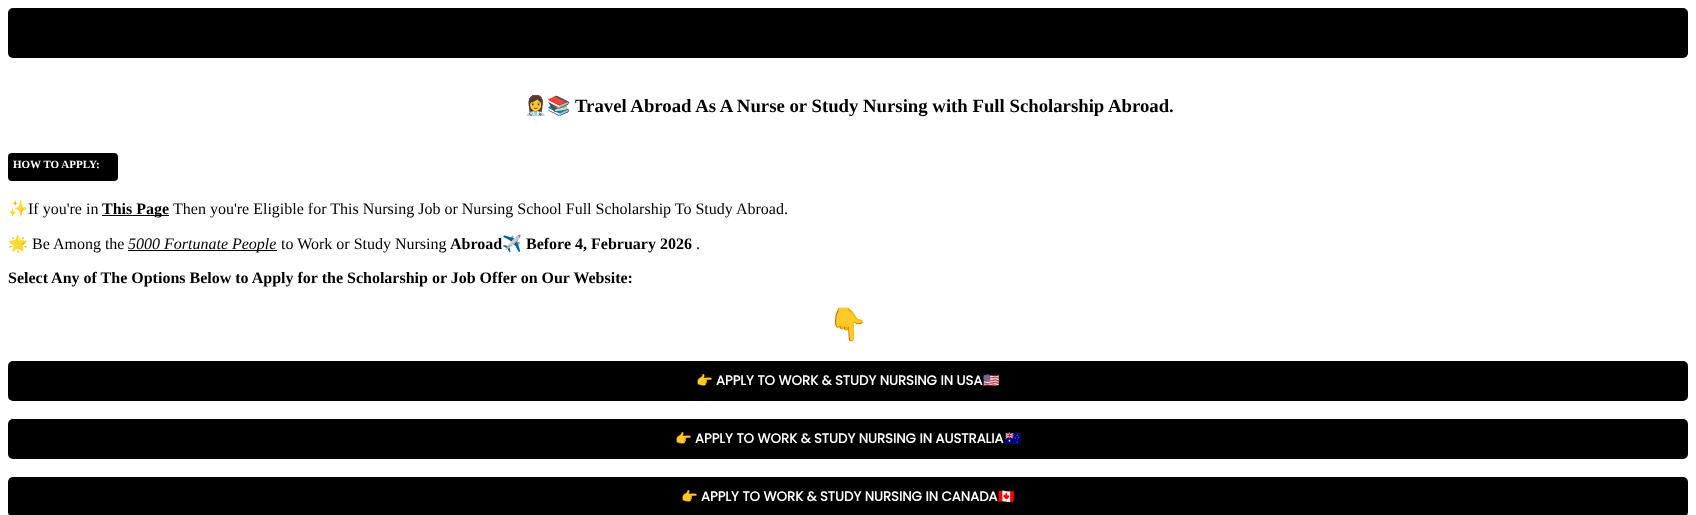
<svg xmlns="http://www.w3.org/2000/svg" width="1696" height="515">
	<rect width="100%" height="100%" fill="#FFFFFF" />
	<rect x="8" y="8" width="1680" height="50" rx="5" fill="#000000" />
	<text x="524" y="112" font-family="Noto Color Emoji" font-size="18.75" font-weight="700" fill="#000000">👩‍⚕️📚</text>
	<text x="575" y="112" font-family="Liberation Serif" font-size="18.75" font-weight="700" fill="#000000">Travel Abroad As A Nurse or Study Nursing with Full Scholarship Abroad.</text>
	<rect x="8" y="153" width="110" height="28" rx="4" fill="#000000" />
	<text x="13" y="168" font-family="Liberation Serif" font-size="11" font-weight="700" fill="#FFFFFF">HOW TO APPLY:</text>
	<text x="8" y="214" font-family="Noto Color Emoji" font-size="16" fill="#000000">✨</text>
	<text x="28" y="214" font-family="Liberation Serif" font-size="16" fill="#000000">If you're in</text>
	<rect x="102" y="215" width="67" height="1" fill="#000000" />
	<text x="102" y="214" font-family="Liberation Serif" font-size="16" font-weight="700" fill="#000000">This Page</text>
	<text x="173" y="214" font-family="Liberation Serif" font-size="16" fill="#000000">Then you're Eligible for This Nursing Job or Nursing School Full Scholarship To Study Abroad.</text>
	<text x="8" y="249" font-family="Noto Color Emoji" font-size="16" fill="#000000">🌟</text>
	<text x="32" y="249" font-family="Liberation Serif" font-size="16" fill="#000000">Be Among the</text>
	<rect x="128" y="250" width="149" height="1" fill="#000000" />
	<text x="128" y="249" font-family="Liberation Serif" font-size="16" font-style="italic" fill="#000000">5000 Fortunate People</text>
	<text x="281" y="249" font-family="Liberation Serif" font-size="16" fill="#000000">to Work or Study Nursing</text>
	<text x="450" y="249" font-family="Liberation Serif" font-size="16" font-weight="700" fill="#000000">Abroad</text>
	<text x="502" y="249" font-family="Noto Color Emoji" font-size="16" font-weight="700" fill="#000000">✈️</text>
	<text x="526" y="249" font-family="Liberation Serif" font-size="16" font-weight="700" fill="#000000">Before 4, February 2026</text>
	<text x="696" y="249" font-family="Liberation Serif" font-size="16" fill="#000000">.</text>
	<text x="8" y="283" font-family="Liberation Serif" font-size="16" font-weight="700" fill="#000000">Select Any of The Options Below to Apply for the Scholarship or Job Offer on Our Website:</text>
	<text x="828" y="335" font-family="Noto Color Emoji" font-size="32" fill="#000000">👇</text>
	<rect x="8" y="361" width="1680" height="40" rx="5" fill="#000000" />
	<text x="696" y="385" font-family="Noto Color Emoji" font-size="13.3" font-weight="700" fill="#FFFFFF">👉</text>
	<text x="716" y="385" font-family="Poppins" font-size="13.3" font-weight="700" fill="#FFFFFF">APPLY TO WORK &amp; STUDY NURSING IN USA</text>
	<text x="983" y="385" font-family="Noto Color Emoji" font-size="13.3" font-weight="700" fill="#FFFFFF">🇺🇸</text>
	<rect x="8" y="419" width="1680" height="40" rx="5" fill="#000000" />
	<text x="675" y="443" font-family="Noto Color Emoji" font-size="13.3" font-weight="700" fill="#FFFFFF">👉</text>
	<text x="695" y="443" font-family="Poppins" font-size="13.3" font-weight="700" fill="#FFFFFF">APPLY TO WORK &amp; STUDY NURSING IN AUSTRALIA</text>
	<text x="1005" y="443" font-family="Noto Color Emoji" font-size="13.3" font-weight="700" fill="#FFFFFF">🇦🇺</text>
	<rect x="8" y="477" width="1680" height="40" rx="5" fill="#000000" />
	<text x="681" y="501" font-family="Noto Color Emoji" font-size="13.3" font-weight="700" fill="#FFFFFF">👉</text>
	<text x="701" y="501" font-family="Poppins" font-size="13.3" font-weight="700" fill="#FFFFFF">APPLY TO WORK &amp; STUDY NURSING IN CANADA</text>
	<text x="998" y="501" font-family="Noto Color Emoji" font-size="13.3" font-weight="700" fill="#FFFFFF">🇨🇦</text>
</svg>
